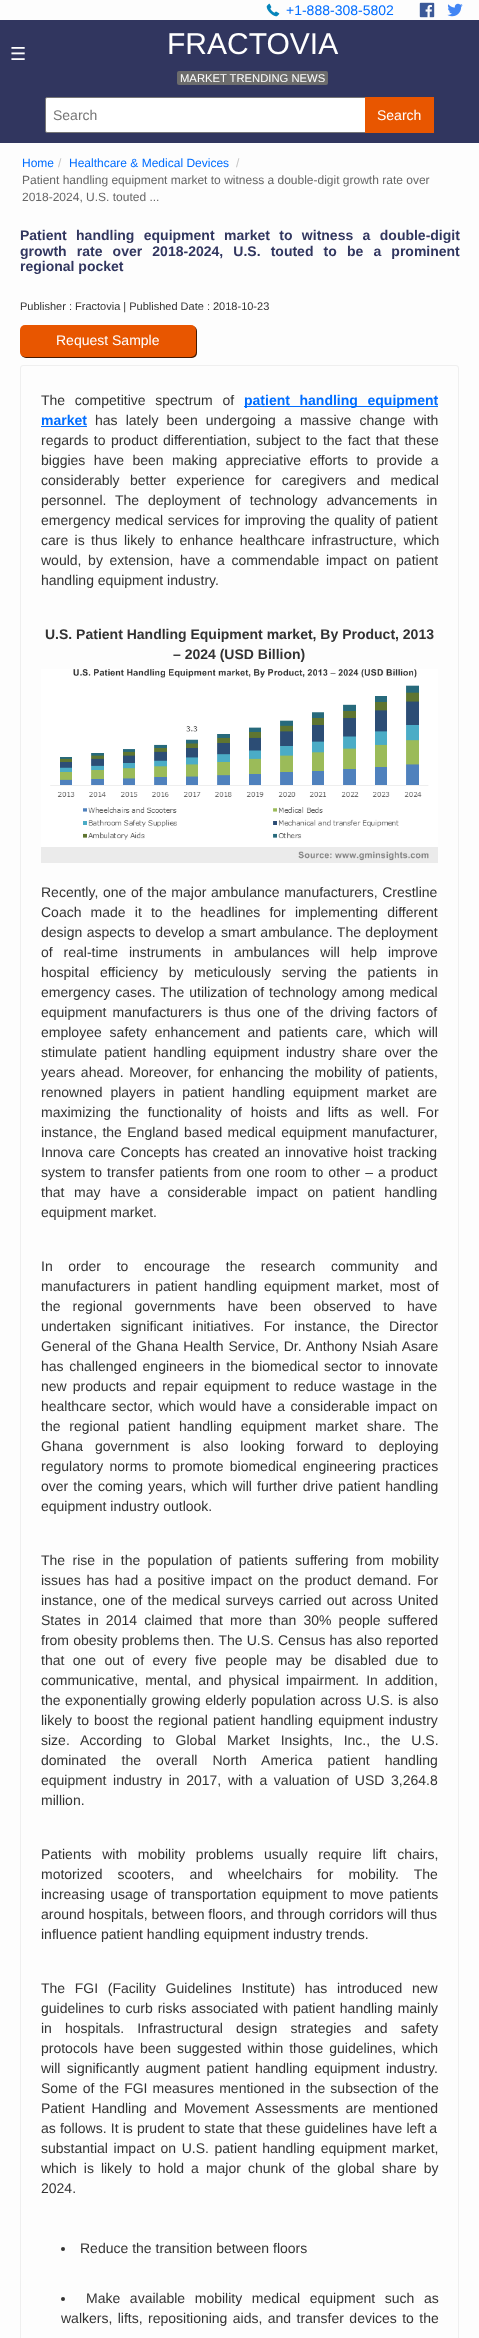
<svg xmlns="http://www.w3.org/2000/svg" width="479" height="2338">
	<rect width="100%" height="100%" fill="#FDFDFD" />
	<image x="266" y="3" width="14" height="14" href="assets/img1.png" />
	<text x="286" y="15" font-family="Liberation Sans" font-size="14" fill="#006DFF">+1-888-308-5802</text>
	<image x="419" y="2" width="16" height="16" href="assets/img2.png" />
	<image x="447" y="3" width="16" height="14" href="assets/img3.png" />
	<rect x="0" y="20" width="479" height="123" fill="#31365F" />
	<text x="10" y="60" font-family="DejaVu Sans" font-size="18" fill="#FFFFFF">☰</text>
	<text x="167" y="54" font-family="Liberation Sans" font-size="30" fill="#FFFFFF">FRACTOVIA</text>
	<rect x="177" y="71" width="151" height="14" rx="2" fill="#6C6C6C" />
	<text x="180" y="82" font-family="Liberation Sans" font-size="11.25" fill="#FFFFFF">MARKET TRENDING NEWS</text>
	<rect x="45.5" y="97.5" width="321" height="35" rx="1.5" fill="#FFFFFF" stroke="#767676" />
	<text x="53" y="120" font-family="Liberation Sans" font-size="14" fill="#757575">Search</text>
	<rect x="365" y="97" width="69" height="36" fill="#E85600" />
	<text x="377" y="120" font-family="Liberation Sans" font-size="14" fill="#FFFFFF">Search</text>
	<text x="22" y="167" font-family="Liberation Sans" font-size="12" fill="#006DFF">Home</text>
	<text x="58" y="167" font-family="Liberation Sans" font-size="12" fill="#C5C5C5">/</text>
	<text x="69" y="167" font-family="Liberation Sans" font-size="12" fill="#006DFF">Healthcare &amp; Medical Devices</text>
	<text x="236" y="167" font-family="Liberation Sans" font-size="12" fill="#C5C5C5">/</text>
	<g font-family="Liberation Sans" font-size="12" fill="#666666">
		<text x="22" y="184">Patient handling equipment market to witness a double-digit growth rate over</text>
		<text x="22" y="201">2018-2024, U.S. touted ...</text>
	</g>
	<g font-family="Liberation Sans" font-size="14" font-weight="700" fill="#31365F">
		<text x="20" y="240" word-spacing="5.5">Patient handling equipment market to witness a double-digit</text>
		<text x="20" y="256" word-spacing="6.25">growth rate over 2018-2024, U.S. touted to be a prominent</text>
		<text x="20" y="271">regional pocket</text>
	</g>
	<text x="20" y="310" font-family="Liberation Sans" font-size="11" fill="#333333">Publisher : Fractovia | Published Date : 2018-10-23</text>
	<rect x="21" y="326" width="176" height="32" rx="5" fill="#471A00" filter="blur(0.5px)" />
	<rect x="20" y="325" width="176" height="32" rx="5" fill="#E85600" />
	<text x="56" y="345" font-family="Liberation Sans" font-size="14" fill="#FFFFFF">Request Sample</text>
	<rect x="20.5" y="365.5" width="438" height="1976" rx="2.5" fill="none" stroke="#EFEFEF" />
	<text x="41" y="405" word-spacing="5.75" font-family="Liberation Sans" font-size="14" fill="#333333">The competitive spectrum of</text>
	<rect x="244" y="406" width="194" height="1" fill="#006DFF" />
	<g font-family="Liberation Sans" font-size="14" font-weight="700" fill="#006DFF">
		<text x="244" y="405" word-spacing="5.75">patient handling equipment</text>
		<text x="41" y="425">market</text>
	</g>
	<rect x="41" y="426" width="46" height="1" fill="#006DFF" />
	<g font-family="Liberation Sans" font-size="14" fill="#333333">
		<text x="95" y="425" word-spacing="4.25">has lately been undergoing a massive change with</text>
		<text x="41" y="445" word-spacing="1.5">regards to product differentiation, subject to the fact that these</text>
		<text x="41" y="465" word-spacing="4.5">biggies have been making appreciative efforts to provide a</text>
		<text x="41" y="485" word-spacing="6.5">considerably better experience for caregivers and medical</text>
		<text x="41" y="505" word-spacing="5">personnel. The deployment of technology advancements in</text>
		<text x="41" y="525" word-spacing="0.75">emergency medical services for improving the quality of patient</text>
		<text x="41" y="545" word-spacing="2.5">care is thus likely to enhance healthcare infrastructure, which</text>
		<text x="41" y="565" word-spacing="2.75">would, by extension, have a commendable impact on patient</text>
		<text x="41" y="585">handling equipment industry.</text>
	</g>
	<g font-family="Liberation Sans" font-size="14" font-weight="700" fill="#333333">
		<text x="45" y="639">U.S. Patient Handling Equipment market, By Product, 2013</text>
		<text x="173" y="659">– 2024 (USD Billion)</text>
	</g>
	<image x="41" y="669" width="397" height="194" href="assets/img4.png" />
	<g font-family="Liberation Sans" font-size="14" fill="#333333">
		<text x="41" y="897" word-spacing="0.75">Recently, one of the major ambulance manufacturers, Crestline</text>
		<text x="41" y="917" word-spacing="5.25">Coach made it to the headlines for implementing different</text>
		<text x="41" y="937" word-spacing="0.5">design aspects to develop a smart ambulance. The deployment</text>
		<text x="41" y="957" word-spacing="7">of real-time instruments in ambulances will help improve</text>
		<text x="41" y="977" word-spacing="6.75">hospital efficiency by meticulously serving the patients in</text>
		<text x="41" y="997" word-spacing="1">emergency cases. The utilization of technology among medical</text>
		<text x="41" y="1017" word-spacing="2.25">equipment manufacturers is thus one of the driving factors of</text>
		<text x="41" y="1037" word-spacing="4">employee safety enhancement and patients care, which will</text>
		<text x="41" y="1057" word-spacing="3.25">stimulate patient handling equipment industry share over the</text>
		<text x="41" y="1077" word-spacing="1.75">years ahead. Moreover, for enhancing the mobility of patients,</text>
		<text x="41" y="1097" word-spacing="4">renowned players in patient handling equipment market are</text>
		<text x="41" y="1117" word-spacing="4.75">maximizing the functionality of hoists and lifts as well. For</text>
		<text x="41" y="1137" word-spacing="1.5">instance, the England based medical equipment manufacturer,</text>
		<text x="41" y="1157" word-spacing="1.25">Innova care Concepts has created an innovative hoist tracking</text>
		<text x="41" y="1177" word-spacing="1.1">system to transfer patients from one room to other – a product</text>
		<text x="41" y="1197" word-spacing="5.75">that may have a considerable impact on patient handling</text>
		<text x="41" y="1217">equipment market.</text>
		<text x="41" y="1271" word-spacing="11.75">In order to encourage the research community and</text>
		<text x="41" y="1291" word-spacing="3">manufacturers in patient handling equipment market, most of</text>
		<text x="41" y="1311" word-spacing="8.25">the regional governments have been observed to have</text>
		<text x="41" y="1331" word-spacing="5.75">undertaken significant initiatives. For instance, the Director</text>
		<text x="41" y="1351" word-spacing="0.9">General of the Ghana Health Service, Dr. Anthony Nsiah Asare</text>
		<text x="41" y="1371" word-spacing="1.75">has challenged engineers in the biomedical sector to innovate</text>
		<text x="41" y="1391" word-spacing="2.25">new products and repair equipment to reduce wastage in the</text>
		<text x="41" y="1411" word-spacing="1.5">healthcare sector, which would have a considerable impact on</text>
		<text x="41" y="1431" word-spacing="5">the regional patient handling equipment market share. The</text>
		<text x="41" y="1451" word-spacing="8">Ghana government is also looking forward to deploying</text>
		<text x="41" y="1471" word-spacing="2.25">regulatory norms to promote biomedical engineering practices</text>
		<text x="41" y="1491" word-spacing="1.25">over the coming years, which will further drive patient handling</text>
		<text x="41" y="1511">equipment industry outlook.</text>
		<text x="41" y="1565" word-spacing="3.5">The rise in the population of patients suffering from mobility</text>
		<text x="41" y="1585" word-spacing="1.9">issues has had a positive impact on the product demand. For</text>
		<text x="41" y="1605" word-spacing="1.25">instance, one of the medical surveys carried out across United</text>
		<text x="41" y="1625" word-spacing="3.25">States in 2014 claimed that more than 30% people suffered</text>
		<text x="41" y="1645" word-spacing="0.25">from obesity problems then. The U.S. Census has also reported</text>
		<text x="41" y="1665" word-spacing="4.5">that one out of every five people may be disabled due to</text>
		<text x="41" y="1685" word-spacing="3.1">communicative, mental, and physical impairment. In addition,</text>
		<text x="41" y="1705" word-spacing="0.75">the exponentially growing elderly population across U.S. is also</text>
		<text x="41" y="1725" word-spacing="1.25">likely to boost the regional patient handling equipment industry</text>
		<text x="41" y="1745" word-spacing="7">size. According to Global Market Insights, Inc., the U.S.</text>
		<text x="41" y="1765" word-spacing="11.25">dominated the overall North America patient handling</text>
		<text x="41" y="1785" word-spacing="2.75">equipment industry in 2017, with a valuation of USD 3,264.8</text>
		<text x="41" y="1805">million.</text>
		<text x="41" y="1859" word-spacing="6.75">Patients with mobility problems usually require lift chairs,</text>
		<text x="41" y="1879" word-spacing="11.25">motorized scooters, and wheelchairs for mobility. The</text>
		<text x="41" y="1899" word-spacing="1.5">increasing usage of transportation equipment to move patients</text>
		<text x="41" y="1919">around hospitals, between floors, and through corridors will thus</text>
		<text x="41" y="1939">influence patient handling equipment industry trends.</text>
		<text x="41" y="1993" word-spacing="5.75">The FGI (Facility Guidelines Institute) has introduced new</text>
		<text x="41" y="2013" word-spacing="1">guidelines to curb risks associated with patient handling mainly</text>
		<text x="41" y="2033" word-spacing="9.25">in hospitals. Infrastructural design strategies and safety</text>
		<text x="41" y="2053" word-spacing="2">protocols have been suggested within those guidelines, which</text>
		<text x="41" y="2073" word-spacing="2.5">will significantly augment patient handling equipment industry.</text>
		<text x="41" y="2093" word-spacing="1.25">Some of the FGI measures mentioned in the subsection of the</text>
		<text x="41" y="2113" word-spacing="3">Patient Handling and Movement Assessments are mentioned</text>
		<text x="41" y="2133" word-spacing="0.25">as follows. It is prudent to state that these guidelines have left a</text>
		<text x="41" y="2153" word-spacing="1.75">substantial impact on U.S. patient handling equipment market,</text>
		<text x="41" y="2173" word-spacing="3.1">which is likely to hold a major chunk of the global share by</text>
		<text x="41" y="2193">2024.</text>
	</g>
	<circle cx="63" cy="2249" r="2" fill="#333333" />
	<text x="80" y="2253" font-family="Liberation Sans" font-size="14" fill="#333333">Reduce the transition between floors</text>
	<circle cx="63" cy="2299" r="2" fill="#333333" />
	<g font-family="Liberation Sans" font-size="14" fill="#333333">
		<text x="86" y="2303" word-spacing="5.75">Make available mobility medical equipment such as</text>
		<text x="61" y="2323" word-spacing="1.5">walkers, lifts, repositioning aids, and transfer devices to the</text>
	</g>
</svg>
